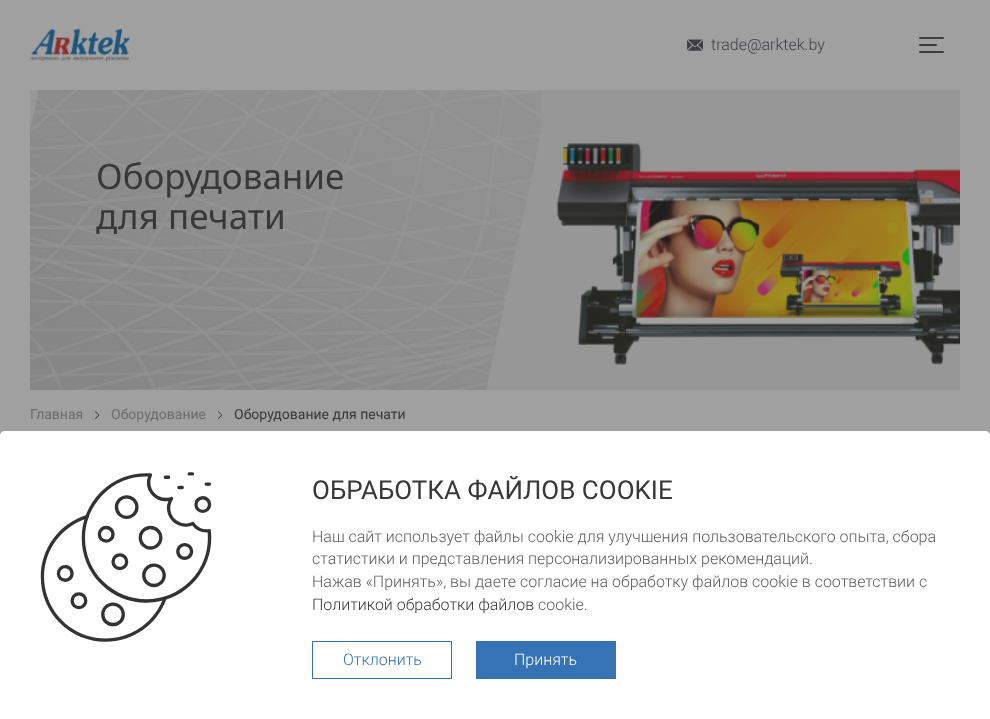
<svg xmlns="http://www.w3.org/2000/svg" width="990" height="719">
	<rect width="100%" height="100%" fill="#A0A0A0" />
	<image x="29" y="28" width="101" height="34" href="assets/img1.png" />
	<image x="687" y="39" width="16" height="12" href="assets/img2.png" />
	<text x="711" y="50" font-family="Roboto" font-size="16" font-weight="300" fill="#3F4045">trade@arktek.by</text>
	<rect x="919" y="37" width="25" height="2" rx="1" fill="#3D3D3D" />
	<rect x="919" y="44" width="18" height="2" rx="1" fill="#3D3D3D" />
	<rect x="919" y="51" width="25" height="2" rx="1" fill="#3D3D3D" />
	<rect x="30" y="90" width="930" height="300" fill="#979797" />
	<image x="556" y="143" width="404" height="222" href="assets/img3.png" />
	<image x="30" y="90" width="512" height="300" href="assets/img4.png" />
	<g font-family="Noto Sans" font-size="35" fill="#383838">
		<text x="96" y="189">Оборудование</text>
		<text x="96" y="229">для печати</text>
	</g>
	<text x="30" y="419" font-family="Roboto" font-size="14" fill="#6C6C6C">Главная</text>
	<image x="95" y="411" width="4" height="8" href="assets/img5.png" />
	<text x="111" y="419" font-family="Roboto" font-size="14" fill="#6C6C6C">Оборудование</text>
	<image x="218" y="411" width="4" height="8" href="assets/img5.png" />
	<text x="234" y="419" font-family="Roboto" font-size="14" fill="#383838">Оборудование для печати</text>
	<path d="M5 431H985C988 431 990 433 990 436V719H0V436C0 433 2 431 5 431Z" fill="#FFFFFF" />
	<image x="40" y="472" width="172" height="170" href="assets/img6.png" />
	<text x="312" y="499" font-family="Roboto" font-size="26" fill="#383838">ОБРАБОТКА ФАЙЛОВ COOKIE</text>
	<g font-family="Roboto" font-size="16" font-weight="300" fill="#5C5C5C">
		<text x="312" y="542">Наш сайт использует файлы cookie для улучшения пользовательского опыта, сбора</text>
		<text x="312" y="564">статистики и представления персонализированных рекомендаций.</text>
		<text x="312" y="587">Нажав «Принять», вы даете согласие на обработку файлов cookie в соответствии с</text>
	</g>
	<text x="312" y="610" font-family="Roboto" font-size="16" font-weight="300" fill="#383838">Политикой обработки файлов</text>
	<text x="538" y="610" font-family="Roboto" font-size="16" font-weight="300" fill="#5C5C5C">cookie.</text>
	<rect x="312.5" y="641.5" width="139" height="37" fill="none" stroke="#3573B4" />
	<text x="343" y="665" font-family="Roboto" font-size="16" font-weight="300" fill="#3573B4">Отклонить</text>
	<rect x="476" y="641" width="140" height="38" fill="#3573B4" />
	<text x="514" y="665" font-family="Roboto" font-size="16" font-weight="300" fill="#FFFFFF">Принять</text>
</svg>
